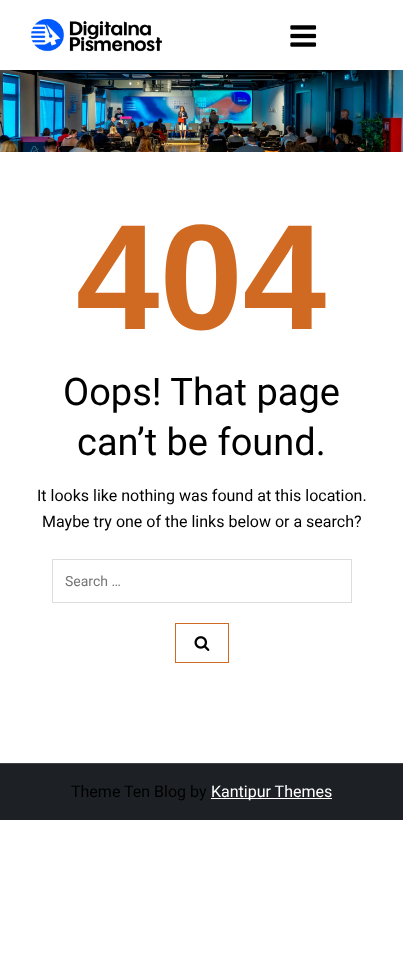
<svg xmlns="http://www.w3.org/2000/svg" width="403" height="957">
	<rect width="100%" height="100%" fill="#FFFFFF" />
	<image x="31" y="19" width="131" height="33" href="assets/img1.png" />
	<image x="290" y="25" width="27" height="22" href="assets/img2.png" />
	<image x="0" y="70" width="403" height="82" href="assets/img3.png" />
	<text x="76" y="329" font-family="Liberation Sans" font-size="150" font-weight="700" fill="#D06A22">404</text>
	<g font-family="Roboto" font-size="38" fill="#000000">
		<text x="63" y="405">Oops! That page</text>
		<text x="77" y="455">can’t be found.</text>
	</g>
	<g font-family="Roboto" font-size="16" fill="#000000">
		<text x="37" y="501">It looks like nothing was found at this location.</text>
		<text x="42" y="527">Maybe try one of the links below or a search?</text>
	</g>
	<rect x="52.5" y="559.5" width="299" height="43" fill="none" stroke="#DDDDDD" />
	<text x="65" y="586" font-family="Roboto" font-size="14" fill="#757575">Search …</text>
	<rect x="175.5" y="623.5" width="53" height="39" fill="none" stroke="#D06A22" />
	<image x="194" y="636" width="16" height="15" href="assets/img4.png" />
	<rect x="0" y="764" width="403" height="56" fill="#1D2024" />
	<rect x="0" y="763" width="403" height="1" fill="#3F4145" />
	<text x="71" y="797" font-family="Roboto" font-size="16" fill="#000000">Theme Ten Blog by</text>
	<rect x="211" y="798" width="121" height="1" fill="#FFFFFF" />
	<text x="211" y="797" font-family="Roboto" font-size="16" fill="#FFFFFF">Kantipur Themes</text>
</svg>
